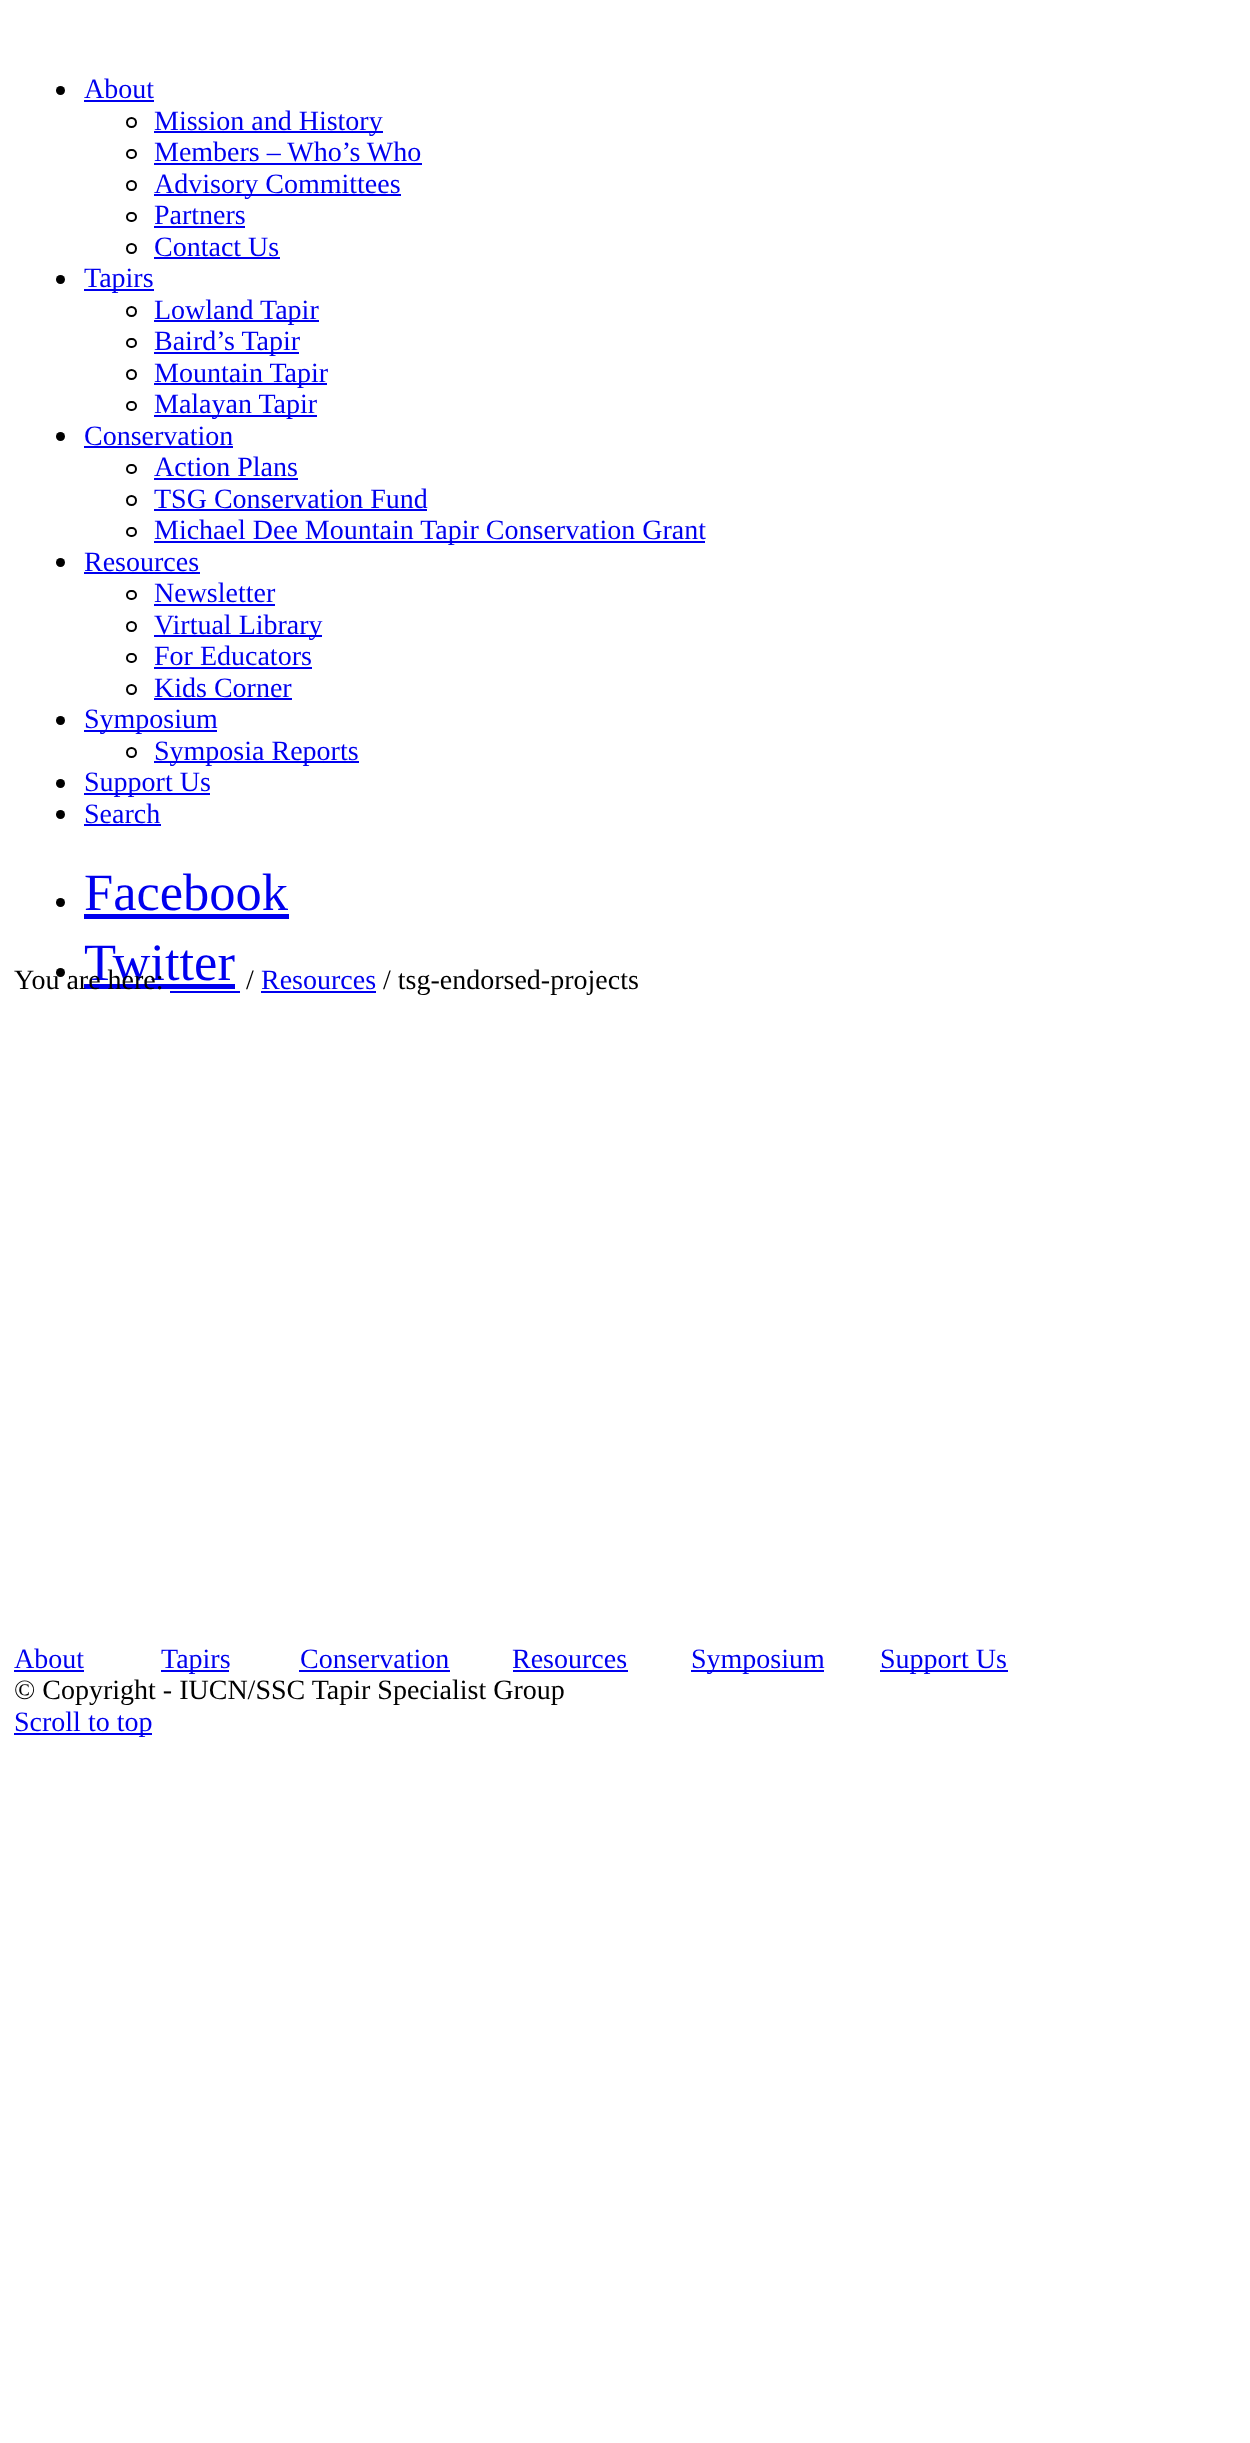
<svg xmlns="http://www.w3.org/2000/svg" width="1250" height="2443">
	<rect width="100%" height="100%" fill="#FFFFFF" />
	<circle cx="60.5" cy="90.5" r="4.5" fill="#000000" />
	<text x="84" y="98" font-family="Liberation Serif" font-size="28" fill="#0000EE">About</text>
	<rect x="84" y="100" width="70" height="2" fill="#0000EE" />
	<circle cx="131.5" cy="122.5" r="4.5" fill="none" stroke="#000000" stroke-width="2" />
	<rect x="154" y="131" width="229" height="2" fill="#0000EE" />
	<text x="154" y="130" font-family="Liberation Serif" font-size="28" fill="#0000EE">Mission and History</text>
	<rect x="127" y="150" width="9" height="8" rx="4" fill="none" stroke="#000000" stroke-width="2" />
	<text x="154" y="161" font-family="Liberation Serif" font-size="28" fill="#0000EE">Members – Who’s Who</text>
	<rect x="154" y="163" width="268" height="2" fill="#0000EE" />
	<circle cx="131.5" cy="185.5" r="4.5" fill="none" stroke="#000000" stroke-width="2" />
	<rect x="154" y="194" width="247" height="2" fill="#0000EE" />
	<text x="154" y="193" font-family="Liberation Serif" font-size="28" fill="#0000EE">Advisory Committees</text>
	<rect x="127" y="213" width="9" height="8" rx="4" fill="none" stroke="#000000" stroke-width="2" />
	<text x="154" y="224" font-family="Liberation Serif" font-size="28" fill="#0000EE">Partners</text>
	<rect x="154" y="226" width="91" height="2" fill="#0000EE" />
	<circle cx="131.5" cy="248.5" r="4.5" fill="none" stroke="#000000" stroke-width="2" />
	<text x="154" y="256" font-family="Liberation Serif" font-size="28" fill="#0000EE">Contact Us</text>
	<rect x="154" y="257" width="126" height="2" fill="#0000EE" />
	<circle cx="60.5" cy="279.5" r="4.5" fill="#000000" />
	<rect x="84" y="289" width="70" height="2" fill="#0000EE" />
	<text x="84" y="287" font-family="Liberation Serif" font-size="28" fill="#0000EE">Tapirs</text>
	<circle cx="131.5" cy="311.5" r="4.5" fill="none" stroke="#000000" stroke-width="2" />
	<rect x="154" y="320" width="165" height="2" fill="#0000EE" />
	<text x="154" y="319" font-family="Liberation Serif" font-size="28" fill="#0000EE">Lowland Tapir</text>
	<rect x="127" y="339" width="9" height="8" rx="4" fill="none" stroke="#000000" stroke-width="2" />
	<rect x="154" y="352" width="145" height="2" fill="#0000EE" />
	<text x="154" y="350" font-family="Liberation Serif" font-size="28" fill="#0000EE">Baird’s Tapir</text>
	<circle cx="131.5" cy="374.5" r="4.5" fill="none" stroke="#000000" stroke-width="2" />
	<rect x="154" y="383" width="173" height="2" fill="#0000EE" />
	<text x="154" y="382" font-family="Liberation Serif" font-size="28" fill="#0000EE">Mountain Tapir</text>
	<rect x="127" y="402" width="9" height="8" rx="4" fill="none" stroke="#000000" stroke-width="2" />
	<rect x="154" y="415" width="163" height="2" fill="#0000EE" />
	<text x="154" y="413" font-family="Liberation Serif" font-size="28" fill="#0000EE">Malayan Tapir</text>
	<circle cx="60.5" cy="436.5" r="4.5" fill="#000000" />
	<text x="84" y="445" font-family="Liberation Serif" font-size="28" fill="#0000EE">Conservation</text>
	<rect x="84" y="446" width="149" height="2" fill="#0000EE" />
	<rect x="127" y="465" width="9" height="8" rx="4" fill="none" stroke="#000000" stroke-width="2" />
	<text x="154" y="476" font-family="Liberation Serif" font-size="28" fill="#0000EE">Action Plans</text>
	<rect x="154" y="478" width="144" height="2" fill="#0000EE" />
	<circle cx="131.5" cy="500.5" r="4.5" fill="none" stroke="#000000" stroke-width="2" />
	<text x="154" y="508" font-family="Liberation Serif" font-size="28" fill="#0000EE">TSG Conservation Fund</text>
	<rect x="154" y="509" width="273" height="2" fill="#0000EE" />
	<rect x="127" y="528" width="9" height="8" rx="4" fill="none" stroke="#000000" stroke-width="2" />
	<rect x="154" y="541" width="551" height="2" fill="#0000EE" />
	<text x="154" y="539" font-family="Liberation Serif" font-size="28" fill="#0000EE">Michael Dee Mountain Tapir Conservation Grant</text>
	<circle cx="60.5" cy="562.5" r="4.5" fill="#000000" />
	<text x="84" y="571" font-family="Liberation Serif" font-size="28" fill="#0000EE">Resources</text>
	<rect x="84" y="572" width="116" height="2" fill="#0000EE" />
	<rect x="127" y="591" width="9" height="8" rx="4" fill="none" stroke="#000000" stroke-width="2" />
	<text x="154" y="602" font-family="Liberation Serif" font-size="28" fill="#0000EE">Newsletter</text>
	<rect x="154" y="604" width="121" height="2" fill="#0000EE" />
	<circle cx="131.5" cy="626.5" r="4.5" fill="none" stroke="#000000" stroke-width="2" />
	<rect x="154" y="635" width="168" height="2" fill="#0000EE" />
	<text x="154" y="634" font-family="Liberation Serif" font-size="28" fill="#0000EE">Virtual Library</text>
	<rect x="127" y="654" width="9" height="8" rx="4" fill="none" stroke="#000000" stroke-width="2" />
	<text x="154" y="665" font-family="Liberation Serif" font-size="28" fill="#0000EE">For Educators</text>
	<rect x="154" y="667" width="158" height="2" fill="#0000EE" />
	<circle cx="131.5" cy="689.5" r="4.5" fill="none" stroke="#000000" stroke-width="2" />
	<text x="154" y="697" font-family="Liberation Serif" font-size="28" fill="#0000EE">Kids Corner</text>
	<rect x="154" y="698" width="138" height="2" fill="#0000EE" />
	<circle cx="60.5" cy="720.5" r="4.5" fill="#000000" />
	<rect x="84" y="730" width="133" height="2" fill="#0000EE" />
	<text x="84" y="728" font-family="Liberation Serif" font-size="28" fill="#0000EE">Symposium</text>
	<circle cx="131.5" cy="752.5" r="4.5" fill="none" stroke="#000000" stroke-width="2" />
	<rect x="154" y="761" width="205" height="2" fill="#0000EE" />
	<text x="154" y="760" font-family="Liberation Serif" font-size="28" fill="#0000EE">Symposia Reports</text>
	<circle cx="60.5" cy="783.5" r="4.5" fill="#000000" />
	<rect x="84" y="793" width="126" height="2" fill="#0000EE" />
	<text x="84" y="791" font-family="Liberation Serif" font-size="28" fill="#0000EE">Support Us</text>
	<circle cx="60.5" cy="814.5" r="4.5" fill="#000000" />
	<text x="84" y="823" font-family="Liberation Serif" font-size="28" fill="#0000EE">Search</text>
	<rect x="84" y="824" width="77" height="2" fill="#0000EE" />
	<circle cx="60.5" cy="902.5" r="4.5" fill="#000000" />
	<text x="84" y="910" font-family="Liberation Serif" font-size="52.5" fill="#0000EE">Facebook</text>
	<rect x="84" y="914" width="205" height="5" fill="#0000EE" />
	<circle cx="60.5" cy="972.5" r="4.5" fill="#000000" />
	<text x="84" y="980" font-family="Liberation Serif" font-size="52.5" fill="#0000EE">Twitter</text>
	<rect x="84" y="984" width="151" height="5" fill="#0000EE" />
	<g font-family="Liberation Serif" font-size="28" fill="#000000">
		<text x="14" y="989">You are here:</text>
		<text x="246" y="989">/</text>
	</g>
	<text x="261" y="989" font-family="Liberation Serif" font-size="28" fill="#0000EE">Resources</text>
	<rect x="261" y="991" width="115" height="2" fill="#0000EE" />
	<text x="383" y="989" font-family="Liberation Serif" font-size="28" fill="#000000">/ tsg-endorsed-projects</text>
	<rect x="170" y="991" width="70" height="2" fill="#0000EE" />
	<text x="14" y="1668" font-family="Liberation Serif" font-size="28" fill="#0000EE">About</text>
	<rect x="14" y="1670" width="70" height="2" fill="#0000EE" />
	<rect x="161" y="1670" width="68" height="2" fill="#0000EE" />
	<g font-family="Liberation Serif" font-size="28" fill="#0000EE">
		<text x="161" y="1668">Tapirs</text>
		<text x="300" y="1668">Conservation</text>
	</g>
	<rect x="299" y="1670" width="151" height="2" fill="#0000EE" />
	<text x="512" y="1668" font-family="Liberation Serif" font-size="28" fill="#0000EE">Resources</text>
	<rect x="513" y="1670" width="115" height="2" fill="#0000EE" />
	<rect x="691" y="1670" width="133" height="2" fill="#0000EE" />
	<text x="691" y="1668" font-family="Liberation Serif" font-size="28" fill="#0000EE">Symposium</text>
	<rect x="880" y="1670" width="128" height="2" fill="#0000EE" />
	<text x="880" y="1668" font-family="Liberation Serif" font-size="28" fill="#0000EE">Support Us</text>
	<text x="14" y="1699" font-family="Liberation Serif" font-size="28" fill="#000000">© Copyright - IUCN/SSC Tapir Specialist Group</text>
	<rect x="14" y="1733" width="138" height="2" fill="#0000EE" />
	<text x="14" y="1731" font-family="Liberation Serif" font-size="28" fill="#0000EE">Scroll to top</text>
</svg>
